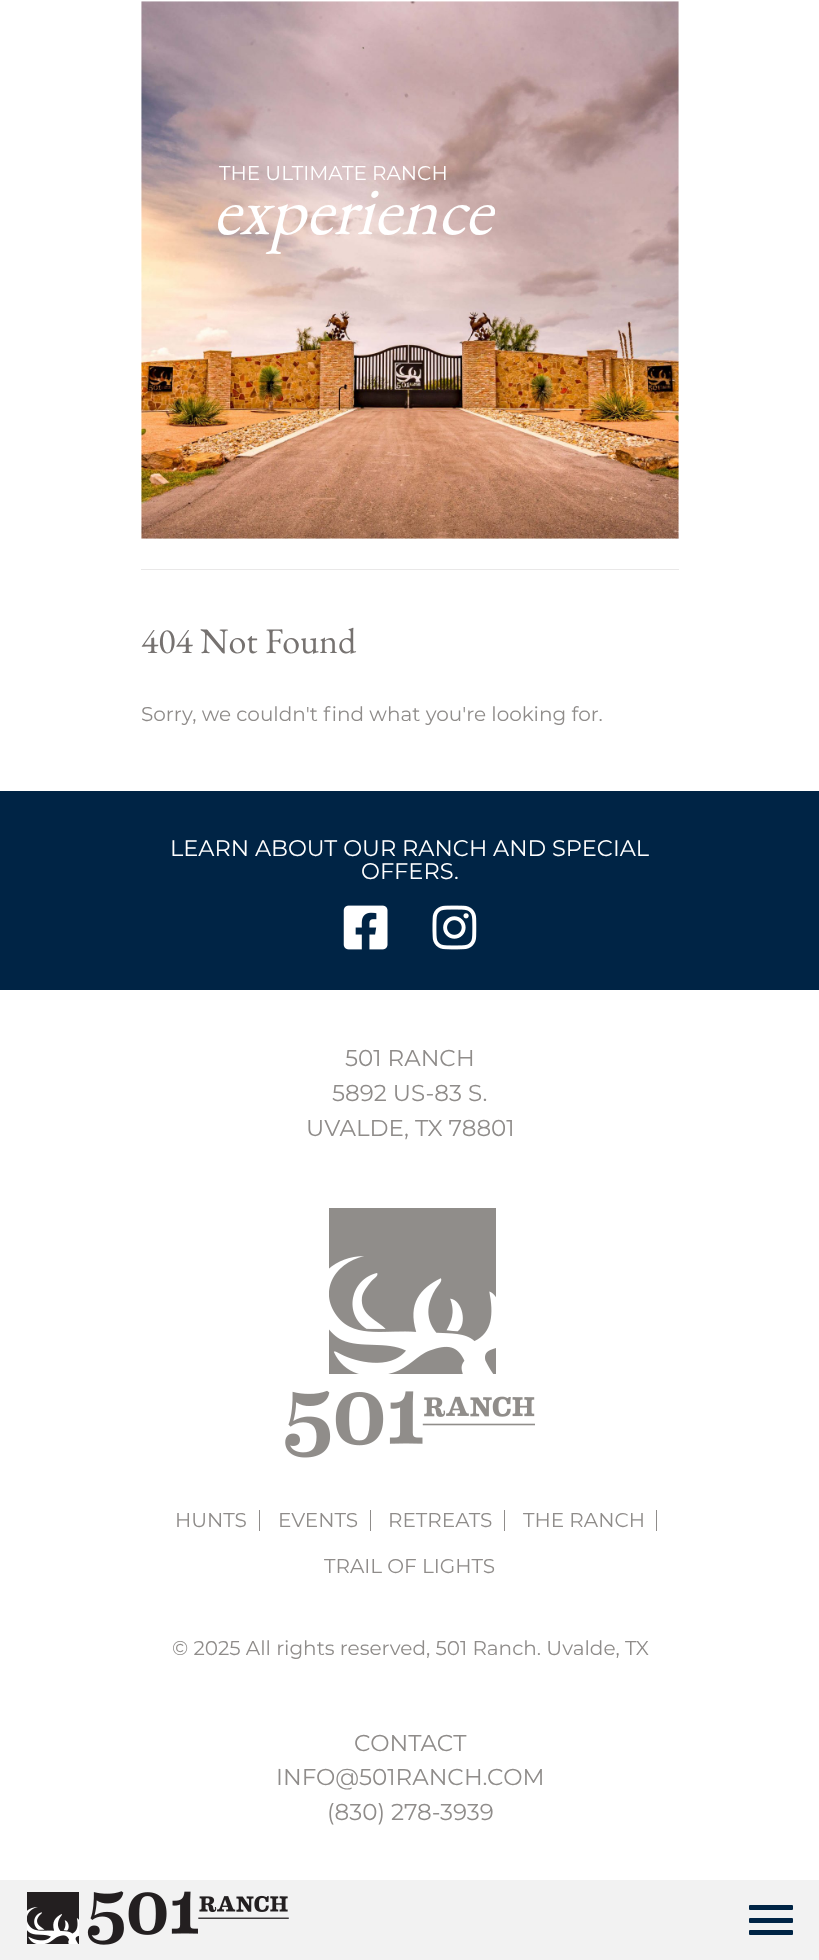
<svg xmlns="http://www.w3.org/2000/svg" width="819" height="1960">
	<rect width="100%" height="100%" fill="#FFFFFF" />
	<image x="141" y="1" width="538" height="538" href="assets/img1.png" />
	<text x="219" y="180" font-family="Montserrat" font-size="20" fill="#FFFFFF">THE ULTIMATE RANCH</text>
	<text x="213" y="234" font-family="EB Garamond" font-size="70" font-style="italic" fill="#FFFFFF">experience</text>
	<rect x="141" y="569" width="538" height="1" fill="#E9E8E8" />
	<text x="141" y="653" font-family="EB Garamond" font-size="36" fill="#767270">404 Not Found</text>
	<text x="141" y="721" font-family="Montserrat" font-size="20" fill="#8F8C8A">Sorry, we couldn't find what you're looking for.</text>
	<rect x="0" y="791" width="819" height="199" fill="#002445" />
	<g font-family="Montserrat" font-size="22.5" fill="#FFFFFF">
		<text x="170" y="856">LEARN ABOUT OUR RANCH AND SPECIAL</text>
		<text x="361" y="879">OFFERS.</text>
	</g>
	<image x="343" y="905" width="45" height="45" href="assets/img2.png" />
	<image x="432" y="905" width="45" height="45" href="assets/img3.png" />
	<g font-family="Montserrat" font-size="23" fill="#8F8C8A">
		<text x="345" y="1066">501 RANCH</text>
		<text x="332" y="1101">5892 US-83 S.</text>
		<text x="306" y="1136">UVALDE, TX 78801</text>
	</g>
	<image x="285" y="1208" width="250" height="250" href="assets/img4.png" />
	<text x="175" y="1527" font-family="Montserrat" font-size="20" fill="#8F8C8A">HUNTS</text>
	<rect x="259" y="1510" width="1" height="21" fill="#8F8C8A" />
	<text x="278" y="1527" font-family="Montserrat" font-size="20" fill="#8F8C8A">EVENTS</text>
	<rect x="370" y="1510" width="1" height="21" fill="#8F8C8A" />
	<text x="388" y="1527" font-family="Montserrat" font-size="20" fill="#8F8C8A">RETREATS</text>
	<rect x="504" y="1510" width="1" height="21" fill="#8F8C8A" />
	<text x="523" y="1527" font-family="Montserrat" font-size="20" fill="#8F8C8A">THE RANCH</text>
	<rect x="656" y="1510" width="1" height="21" fill="#8F8C8A" />
	<g font-family="Montserrat" font-size="20" fill="#8F8C8A">
		<text x="324" y="1573">TRAIL OF LIGHTS</text>
		<text x="172" y="1655">© 2025 All rights reserved, 501 Ranch. Uvalde, TX</text>
	</g>
	<g font-family="Montserrat" font-size="23" fill="#8F8C8A">
		<text x="354" y="1751">CONTACT</text>
		<text x="276" y="1785">INFO@501RANCH.COM</text>
		<text x="327" y="1820">(830) 278-3939</text>
	</g>
	<rect x="0" y="1880" width="819" height="80" fill="#F2F2F2" />
	<image x="27" y="1891" width="262" height="54" href="assets/img5.png" />
	<rect x="749" y="1918" width="44" height="5" rx="1" fill="#002445" />
	<rect x="749" y="1905" width="44" height="5" rx="1" fill="#002445" />
	<rect x="749" y="1930" width="44" height="5" rx="1" fill="#002445" />
</svg>
